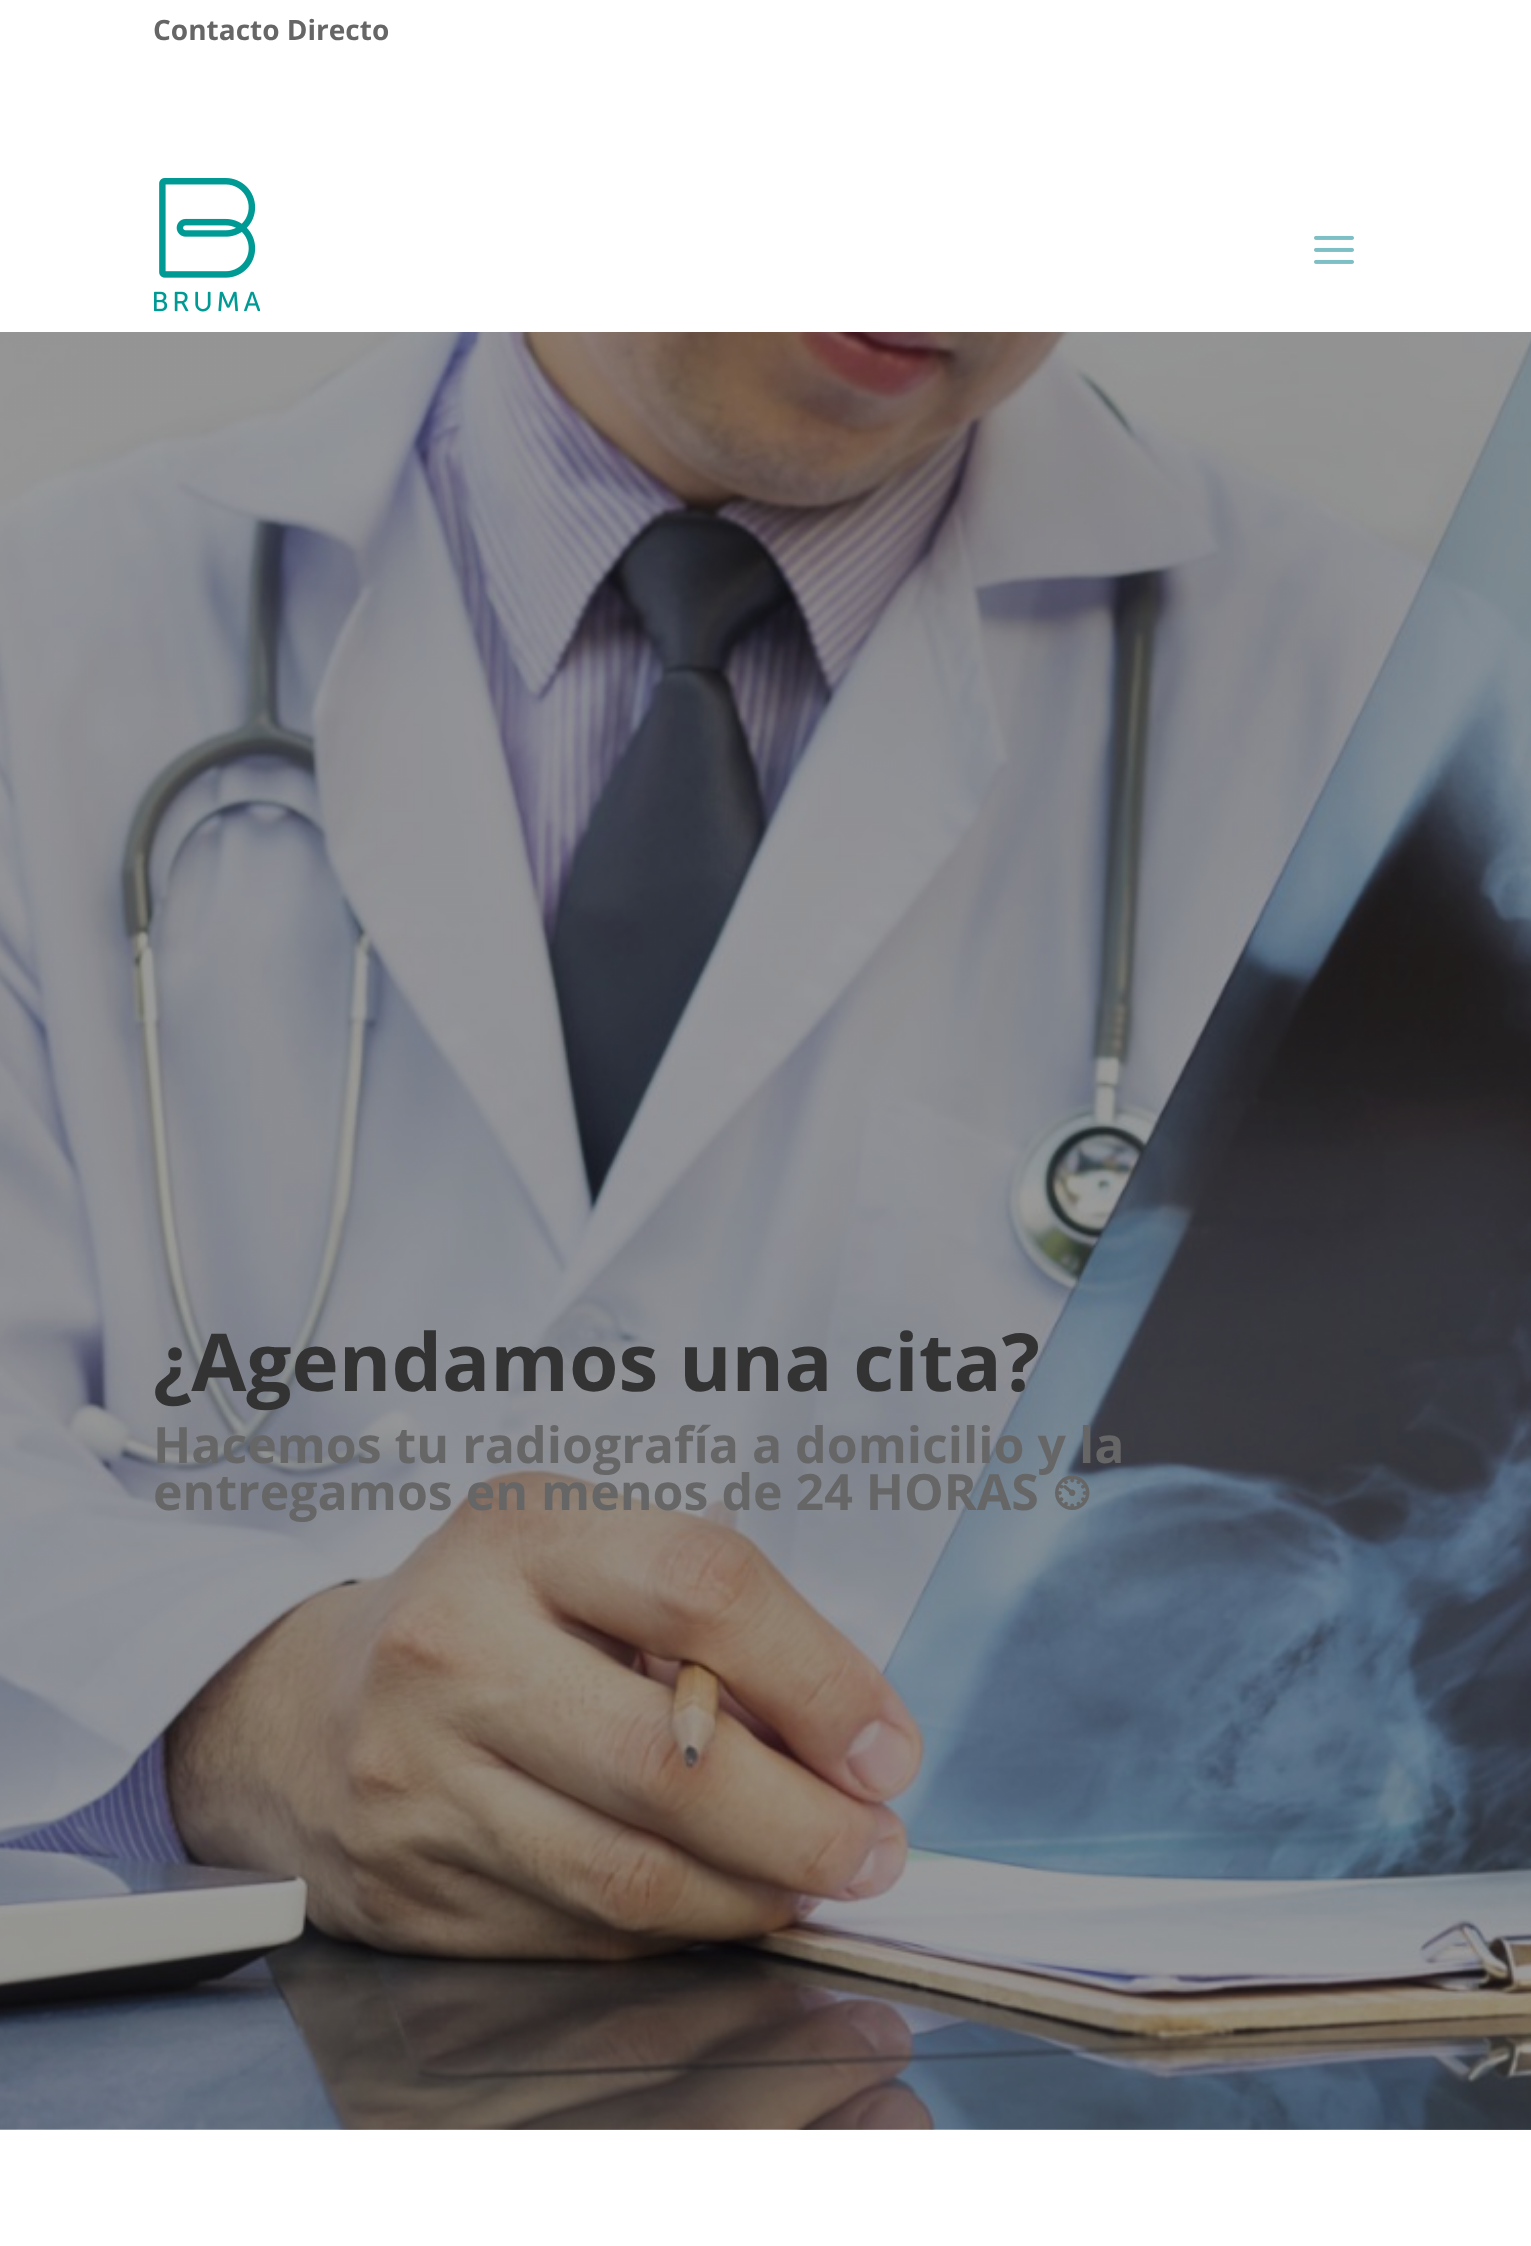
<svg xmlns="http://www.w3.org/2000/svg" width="1531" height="2246">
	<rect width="100%" height="100%" fill="#FFFFFF" />
	<text x="153" y="40" font-family="Open Sans" font-size="28" font-weight="700" fill="#666666">Contacto Directo</text>
	<image x="154" y="178" width="106" height="134" href="assets/img1.png" />
	<image x="1314" y="235" width="40" height="29" href="assets/img2.png" />
	<image x="0" y="332" width="1531" height="1798" href="assets/img3.png" />
	<text x="153" y="1391" font-family="Open Sans" font-size="80" font-weight="700" fill="#333333">¿Agendamos una cita?</text>
	<g font-family="Open Sans" font-size="50" font-weight="700" fill="#666666">
		<text x="153" y="1463">Hacemos tu radiografía a domicilio y la</text>
		<text x="153" y="1510">entregamos en menos de 24 HORAS</text>
	</g>
	<text x="1052" y="1510" font-family="FreeSerif" font-size="50" font-weight="700" fill="#666666">⏲</text>
</svg>
